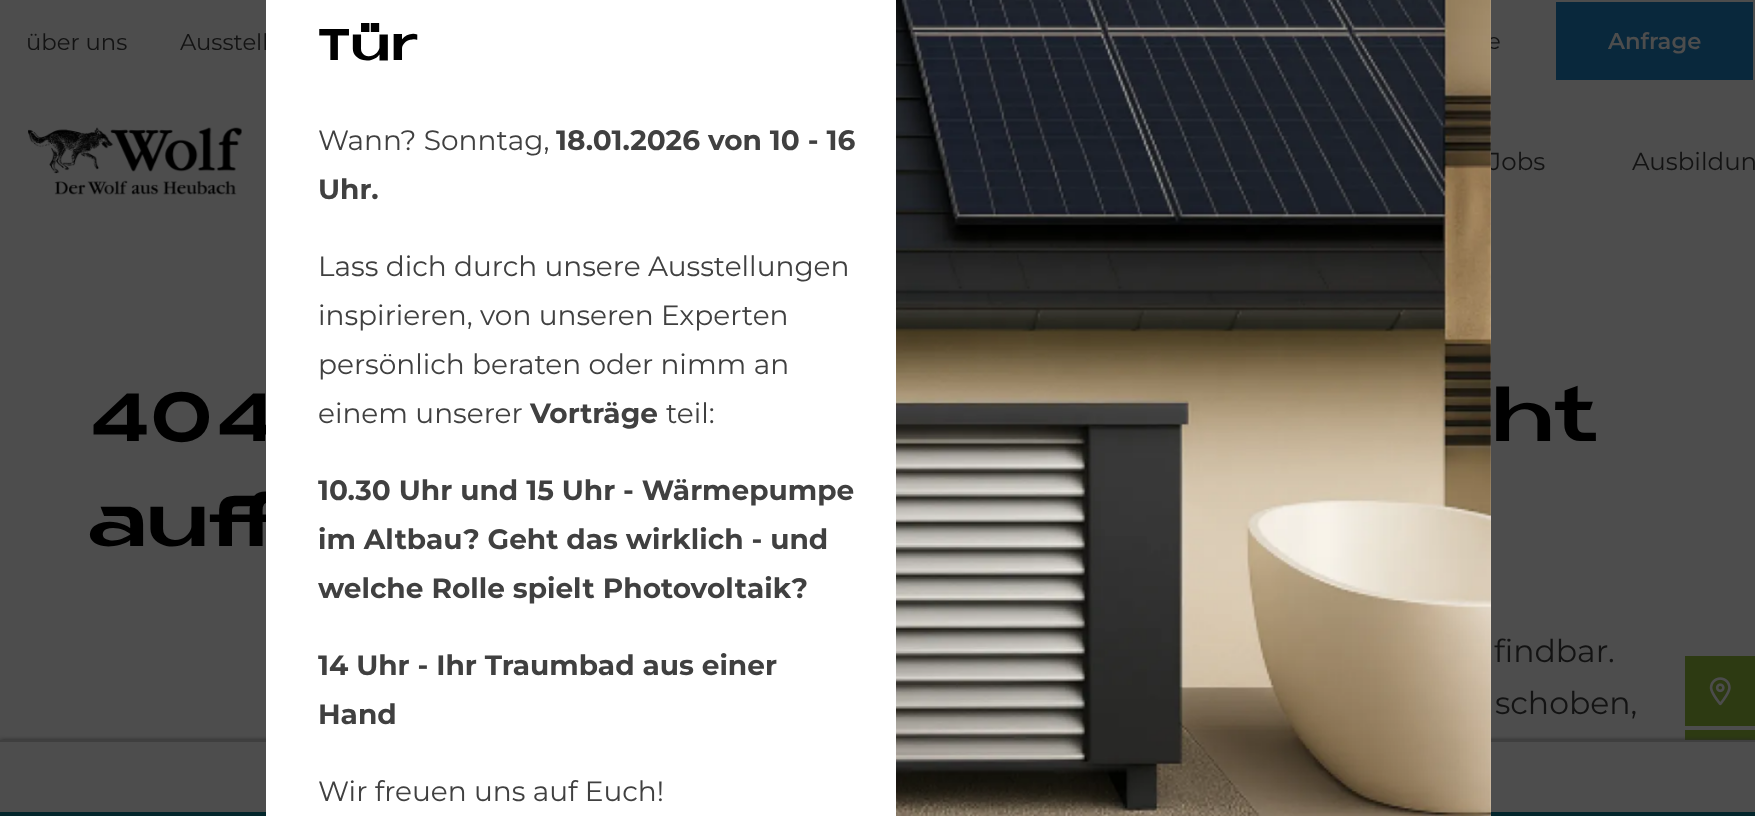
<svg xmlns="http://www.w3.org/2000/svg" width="1755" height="816">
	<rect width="100%" height="100%" fill="#4D4D4D" />
	<g font-family="Montserrat" font-size="22.75" fill="#131313">
		<text x="180" y="50">Ausstell</text>
		<text x="1487" y="49">e</text>
	</g>
	<text x="1489" y="170" font-family="Montserrat" font-size="24.5" fill="#131313">Jobs</text>
	<g font-family="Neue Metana" font-size="70" font-weight="700" fill="#000000">
		<text x="88" y="441">404</text>
		<text x="88" y="546">auff</text>
	</g>
	<rect x="1685" y="730" width="70" height="10" fill="#2D3A12" />
	<rect x="0" y="740" width="1755" height="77" fill="#292929" filter="blur(2px)" />
	<rect x="0" y="742" width="1755" height="70" fill="#4D4D4D" />
	<rect x="0" y="740" width="1755" height="2" fill="#3F3F3F" />
	<rect x="0" y="812" width="1755" height="4" fill="#03262C" />
	<rect x="266" y="0" width="1225" height="816" fill="#FFFFFF" />
	<text x="318" y="60" font-family="Neue Metana" font-size="45.5" font-weight="700" fill="#000000">Tür</text>
	<text x="318" y="150" font-family="Montserrat" font-size="28" fill="#404040">Wann? Sonntag,</text>
	<g font-family="Montserrat" font-size="28" font-weight="700" fill="#404040">
		<text x="556" y="150">18.01.2026 von 10 - 16</text>
		<text x="318" y="199">Uhr.</text>
	</g>
	<g font-family="Montserrat" font-size="28" fill="#404040">
		<text x="318" y="276">Lass dich durch unsere Ausstellungen</text>
		<text x="318" y="325">inspirieren, von unseren Experten</text>
		<text x="318" y="374">persönlich beraten oder nimm an</text>
		<text x="318" y="423">einem unserer</text>
	</g>
	<text x="530" y="423" font-family="Montserrat" font-size="28" font-weight="700" fill="#404040">Vorträge</text>
	<text x="666" y="423" font-family="Montserrat" font-size="28" fill="#404040">teil:</text>
	<g font-family="Montserrat" font-size="28" font-weight="700" fill="#404040">
		<text x="318" y="500">10.30 Uhr und 15 Uhr - Wärmepumpe</text>
		<text x="318" y="549">im Altbau? Geht das wirklich - und</text>
		<text x="318" y="598">welche Rolle spielt Photovoltaik?</text>
		<text x="318" y="675">14 Uhr - Ihr Traumbad aus einer</text>
		<text x="318" y="724">Hand</text>
	</g>
	<text x="318" y="801" font-family="Montserrat" font-size="28" fill="#404040">Wir freuen uns auf Euch!</text>
	<image x="896" y="0" width="595" height="816" href="assets/img1.png" />
	<text x="26" y="50" font-family="Montserrat" font-size="22.75" fill="#131313">über uns</text>
	<rect x="1556" y="2" width="197" height="78" fill="#09283C" />
	<text x="1608" y="49" font-family="Montserrat" font-size="22.75" font-weight="600" fill="#4D4D4D">Anfrage</text>
	<image x="28" y="127" width="214" height="68" href="assets/img2.png" />
	<text x="1632" y="170" font-family="Montserrat" font-size="24.5" fill="#131313">Ausbildun</text>
	<text x="1491" y="441" font-family="Neue Metana" font-size="70" font-weight="700" fill="#000000">ht</text>
	<g font-family="Montserrat" font-size="31.5" fill="#131313">
		<text x="1494" y="662">findbar.</text>
		<text x="1495" y="714">schoben,</text>
	</g>
	<rect x="1685" y="656" width="70" height="70" fill="#2D3A12" />
	<image x="1709" y="677" width="22" height="29" href="assets/img3.png" />
</svg>
